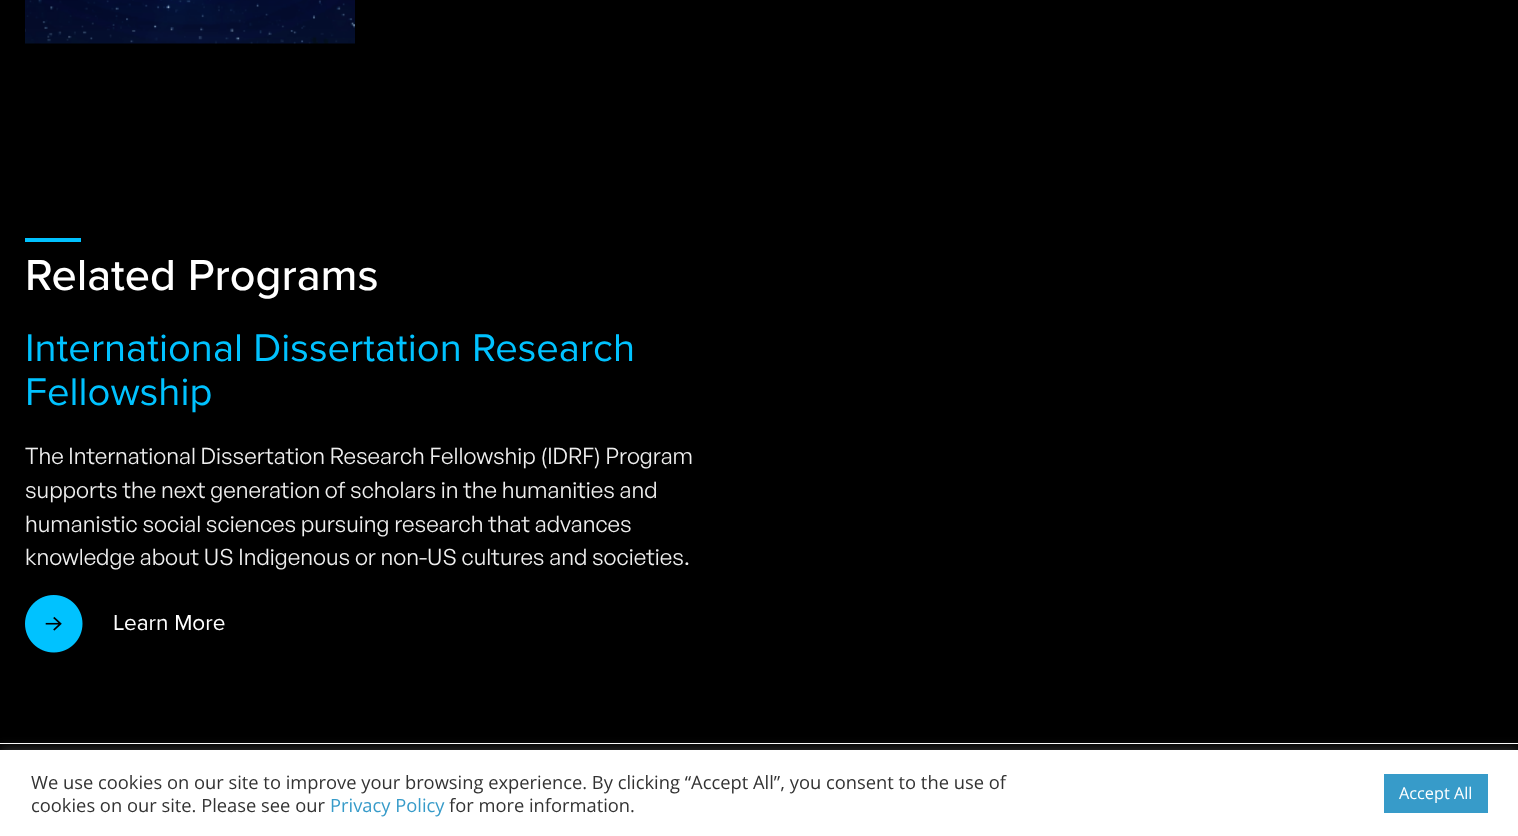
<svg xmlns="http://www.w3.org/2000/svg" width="1518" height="836">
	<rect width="100%" height="100%" fill="#000000" />
	<image x="25" y="0" width="330" height="44" href="assets/img1.png" />
	<rect x="25" y="238" width="56" height="4" fill="#00C2FF" />
	<text x="25" y="290" font-family="Proxima Nova" font-size="45" font-weight="500" fill="#FFFFFF">Related Programs</text>
	<g font-family="Proxima Nova" font-size="40" fill="#00C2FF">
		<text x="25" y="361">International Dissertation Research</text>
		<text x="25" y="405">Fellowship</text>
	</g>
	<g font-family="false" font-size="22.5" fill="#EFEFEF">
		<text x="25" y="464">The International Dissertation Research Fellowship (IDRF) Program</text>
		<text x="25" y="498">supports the next generation of scholars in the humanities and</text>
		<text x="25" y="532">humanistic social sciences pursuing research that advances</text>
		<text x="25" y="565">knowledge about US Indigenous or non-US cultures and societies.</text>
	</g>
	<image x="25" y="595" width="58" height="58" href="assets/img2.png" />
	<text x="113" y="630" font-family="Proxima Nova" font-size="22.5" fill="#FFFFFF">Learn More</text>
	<rect x="0" y="743" width="1518" height="1" fill="#FFFFFF" />
	<rect x="0" y="749" width="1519" height="86" fill="#ACABAB" fill-opacity="0.3" filter="blur(6px)" />
	<rect x="0" y="750" width="1518" height="86" fill="#FFFFFF" />
	<g font-family="Open Sans" font-size="18.33" fill="#333333">
		<text x="31" y="789">We use cookies on our site to improve your browsing experience. By clicking “Accept All”, you consent to the use of</text>
		<text x="31" y="812">cookies on our site. Please see our</text>
	</g>
	<text x="330" y="812" font-family="Open Sans" font-size="18.33" fill="#379BC9">Privacy Policy</text>
	<text x="449" y="812" font-family="Open Sans" font-size="18.33" fill="#333333">for more information.</text>
	<rect x="1384" y="774" width="104" height="39" fill="#379BC9" />
	<text x="1399" y="799" font-family="Open Sans" font-size="16.25" fill="#FFFFFF">Accept All</text>
</svg>
